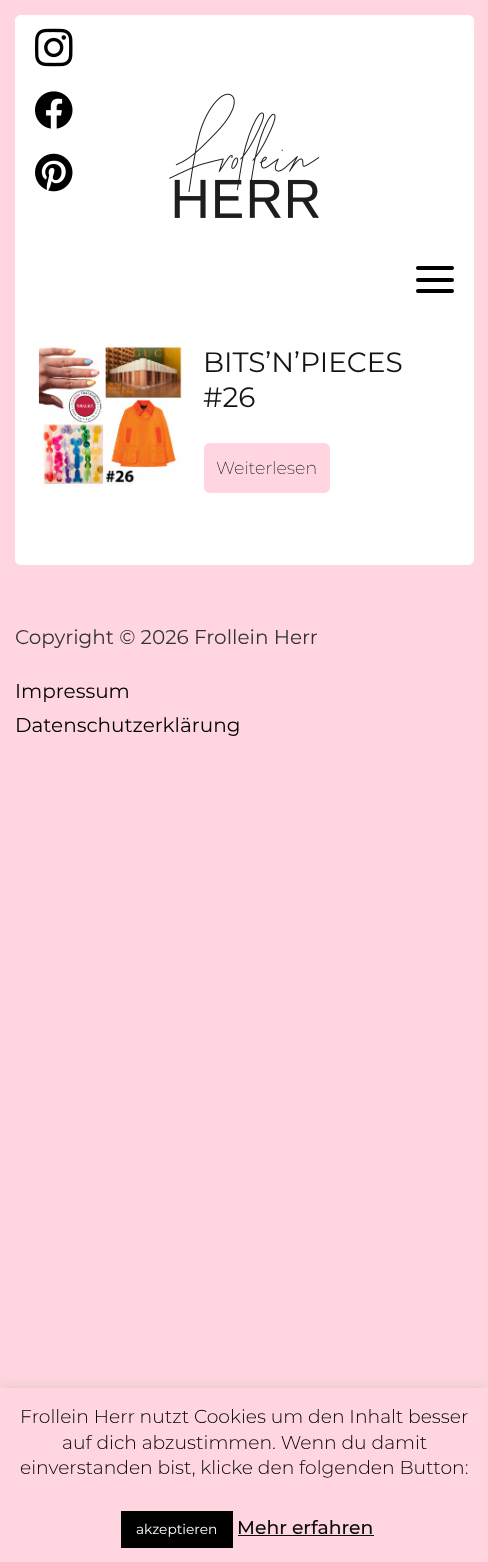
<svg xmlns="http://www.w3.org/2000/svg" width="488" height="1562">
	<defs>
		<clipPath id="clip1"><rect x="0" y="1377" width="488" height="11" /></clipPath>
	</defs>
	<rect width="100%" height="100%" fill="#FFD6DF" />
	<path d="M21 15H468C471.5 15 474 17.5 474 21V300H15V21C15 17.5 17.5 15 21 15Z" fill="#FFFFFF" />
	<image x="35" y="28" width="38" height="39" href="assets/img1.png" />
	<image x="35" y="91" width="38" height="38" href="assets/img2.png" />
	<image x="35" y="153" width="38" height="39" href="assets/img3.png" />
	<image x="169" y="93" width="151" height="125" href="assets/img4.png" />
	<rect x="416" y="266" width="38" height="4" rx="2" fill="#000000" />
	<rect x="416" y="278" width="38" height="4" rx="2" fill="#000000" />
	<rect x="416" y="289" width="38" height="4" rx="2" fill="#000000" />
	<path d="M15 300H474V559C474 562.5 471.5 565 468 565H21C17.5 565 15 562.5 15 559Z" fill="#FFFFFF" />
	<image x="38" y="345" width="144" height="141" href="assets/img5.png" />
	<g font-family="Montserrat" font-size="28" fill="#141414">
		<text x="203" y="372">BITS’N’PIECES</text>
		<text x="203" y="407">#26</text>
	</g>
	<rect x="204" y="443" width="126" height="50" rx="6" fill="#FFD6DF" />
	<text x="216" y="474" font-family="Montserrat" font-size="17.5" font-weight="200" fill="#141414">Weiterlesen</text>
	<text x="15" y="644" font-family="Montserrat" font-size="20" fill="#343434">Copyright © 2026 Frollein Herr</text>
	<g font-family="Montserrat" font-size="20" fill="#000000">
		<text x="15" y="698">Impressum</text>
		<text x="15" y="732">Datenschutzerklärung</text>
	</g>
	<g clip-path="url(#clip1)">
		<rect x="0" y="1386" width="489" height="175" fill="#ACABAB" fill-opacity="0.3" filter="blur(6px)" />
	</g>
	<g font-family="Montserrat" font-size="18.75" font-weight="300" fill="#000000">
		<text x="20" y="1423">Frollein Herr nutzt Cookies um den Inhalt besser</text>
		<text x="62" y="1449">auf dich abzustimmen. Wenn du damit</text>
		<text x="20" y="1474">einverstanden bist, klicke den folgenden Button:</text>
	</g>
	<rect x="121" y="1511" width="112" height="37" fill="#000000" />
	<text x="136" y="1534" font-family="Montserrat" font-size="13.75" fill="#FFFFFF">akzeptieren</text>
	<text x="237" y="1534" font-family="Montserrat" font-size="18.75" font-weight="500" fill="#0A0A0A">Mehr erfahren</text>
	<rect x="238" y="1535" width="136" height="1" fill="#0A0A0A" />
</svg>
